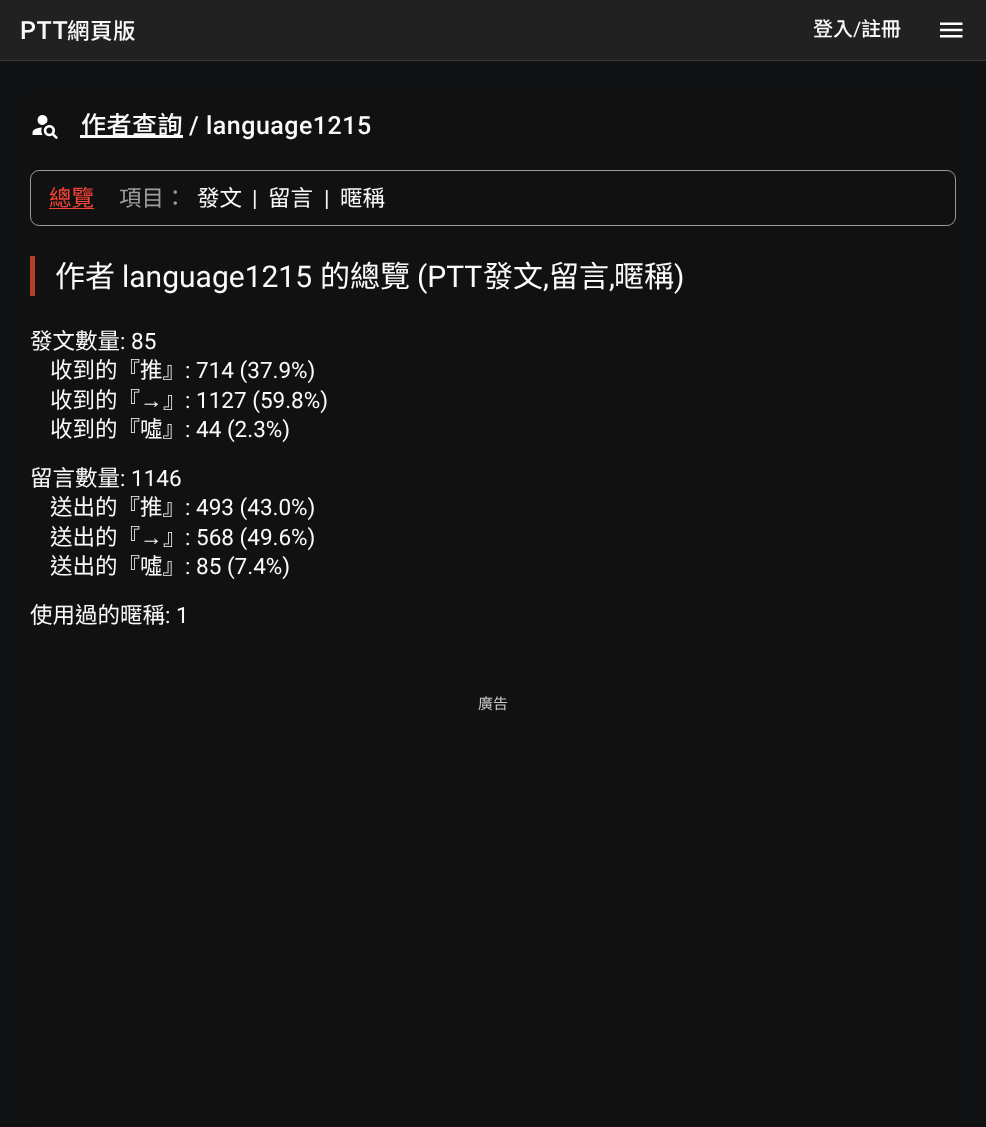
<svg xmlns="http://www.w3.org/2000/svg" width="986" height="1127">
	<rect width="100%" height="100%" fill="#111214" />
	<rect x="0" y="0" width="986" height="60" fill="#212121" />
	<rect x="0" y="60" width="986" height="1" fill="#343536" />
	<text x="20" y="39" font-family="Roboto" font-size="25" font-weight="500" letter-spacing="0.5" fill="#FAFAFA">PTT</text>
	<text x="67" y="39" font-family="Noto Sans CJK TC" font-size="22.5" font-weight="500" letter-spacing="0.5" fill="#FAFAFA">網頁版</text>
	<text x="813" y="36" font-family="Noto Sans CJK TC" font-size="20" font-weight="500" fill="#FAFAFA">登入</text>
	<text x="853" y="36" font-family="Roboto" font-size="20" fill="#FAFAFA">/</text>
	<text x="861" y="36" font-family="Noto Sans CJK TC" font-size="20" font-weight="500" fill="#FAFAFA">註冊</text>
	<image x="940" y="22" width="23" height="16" href="assets/img1.png" />
	<rect x="30" y="90" width="926" height="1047" rx="10" fill="#111111" />
	<image x="32" y="115" width="26" height="25" href="assets/img2.png" />
	<rect x="80" y="135" width="103" height="3" fill="#FAFAFA" />
	<text x="81" y="134" font-family="Noto Sans CJK TC" font-size="25" font-weight="500" letter-spacing="0.5" fill="#FAFAFA">作者查詢</text>
	<text x="189" y="134" font-family="Roboto" font-size="25" font-weight="500" letter-spacing="0.5" fill="#FAFAFA">/ language1215</text>
	<rect x="30.5" y="170.5" width="925" height="55" rx="8.5" fill="none" stroke="#999999" />
	<text x="49" y="206" font-family="Noto Sans CJK TC" font-size="22.5" fill="#F44336">總覽</text>
	<rect x="49" y="208" width="45" height="1" fill="#F44336" />
	<text x="119" y="206" font-family="Noto Sans CJK TC" font-size="22.5" fill="#9E9E9E">項目：</text>
	<text x="197" y="206" font-family="Noto Sans CJK TC" font-size="22.5" fill="#FAFAFA">發文</text>
	<text x="252" y="206" font-family="Roboto" font-size="22.5" fill="#FAFAFA">|</text>
	<text x="268" y="206" font-family="Noto Sans CJK TC" font-size="22.5" fill="#FAFAFA">留言</text>
	<text x="324" y="206" font-family="Roboto" font-size="22.5" fill="#FAFAFA">|</text>
	<text x="340" y="206" font-family="Noto Sans CJK TC" font-size="22.5" fill="#FAFAFA">暱稱</text>
	<rect x="30" y="256" width="5" height="40" fill="#B34126" />
	<text x="55" y="287" font-family="Noto Sans CJK TC" font-size="30" fill="#FAFAFA">作者</text>
	<text x="122" y="287" font-family="Roboto" font-size="30" fill="#FAFAFA">language1215</text>
	<text x="320" y="287" font-family="Noto Sans CJK TC" font-size="30" fill="#FAFAFA">的總覽</text>
	<text x="417" y="287" font-family="Roboto" font-size="30" fill="#FAFAFA">(PTT</text>
	<text x="483" y="287" font-family="Noto Sans CJK TC" font-size="30" fill="#FAFAFA">發文</text>
	<text x="543" y="287" font-family="Roboto" font-size="30" fill="#FAFAFA">,</text>
	<text x="549" y="287" font-family="Noto Sans CJK TC" font-size="30" fill="#FAFAFA">留言</text>
	<text x="609" y="287" font-family="Roboto" font-size="30" fill="#FAFAFA">,</text>
	<text x="614" y="287" font-family="Noto Sans CJK TC" font-size="30" fill="#FAFAFA">暱稱</text>
	<text x="674" y="287" font-family="Roboto" font-size="30" fill="#FAFAFA">)</text>
	<text x="30" y="349" font-family="Noto Sans CJK TC" font-size="22.5" fill="#FAFAFA">發文數量</text>
	<text x="120" y="349" font-family="Roboto" font-size="22.5" fill="#FAFAFA">: 85</text>
	<text x="50" y="378" font-family="Noto Sans CJK TC" font-size="22.5" fill="#FAFAFA">收到的『推』</text>
	<text x="185" y="378" font-family="Roboto" font-size="22.5" fill="#FAFAFA">: 714 (37.9%)</text>
	<text x="50" y="408" font-family="Noto Sans CJK TC" font-size="22.5" fill="#FAFAFA">收到的『</text>
	<text x="140" y="408" font-family="Liberation Sans" font-size="22.5" fill="#FAFAFA">→</text>
	<text x="163" y="408" font-family="Noto Sans CJK TC" font-size="22.5" fill="#FAFAFA">』</text>
	<text x="185" y="408" font-family="Roboto" font-size="22.5" fill="#FAFAFA">: 1127 (59.8%)</text>
	<text x="50" y="437" font-family="Noto Sans CJK TC" font-size="22.5" fill="#FAFAFA">收到的『噓』</text>
	<text x="185" y="437" font-family="Roboto" font-size="22.5" fill="#FAFAFA">: 44 (2.3%)</text>
	<text x="30" y="486" font-family="Noto Sans CJK TC" font-size="22.5" fill="#FAFAFA">留言數量</text>
	<text x="120" y="486" font-family="Roboto" font-size="22.5" fill="#FAFAFA">: 1146</text>
	<text x="50" y="515" font-family="Noto Sans CJK TC" font-size="22.5" fill="#FAFAFA">送出的『推』</text>
	<text x="185" y="515" font-family="Roboto" font-size="22.5" fill="#FAFAFA">: 493 (43.0%)</text>
	<text x="50" y="545" font-family="Noto Sans CJK TC" font-size="22.5" fill="#FAFAFA">送出的『</text>
	<text x="140" y="545" font-family="Liberation Sans" font-size="22.5" fill="#FAFAFA">→</text>
	<text x="163" y="545" font-family="Noto Sans CJK TC" font-size="22.5" fill="#FAFAFA">』</text>
	<text x="185" y="545" font-family="Roboto" font-size="22.5" fill="#FAFAFA">: 568 (49.6%)</text>
	<text x="50" y="574" font-family="Noto Sans CJK TC" font-size="22.5" fill="#FAFAFA">送出的『噓』</text>
	<text x="185" y="574" font-family="Roboto" font-size="22.5" fill="#FAFAFA">: 85 (7.4%)</text>
	<text x="30" y="623" font-family="Noto Sans CJK TC" font-size="22.5" fill="#FAFAFA">使用過的暱稱</text>
	<text x="165" y="623" font-family="Roboto" font-size="22.5" fill="#FAFAFA">: 1</text>
	<text x="478" y="709" font-family="Noto Sans CJK TC" font-size="15" fill="#C8C8C8">廣告</text>
</svg>
